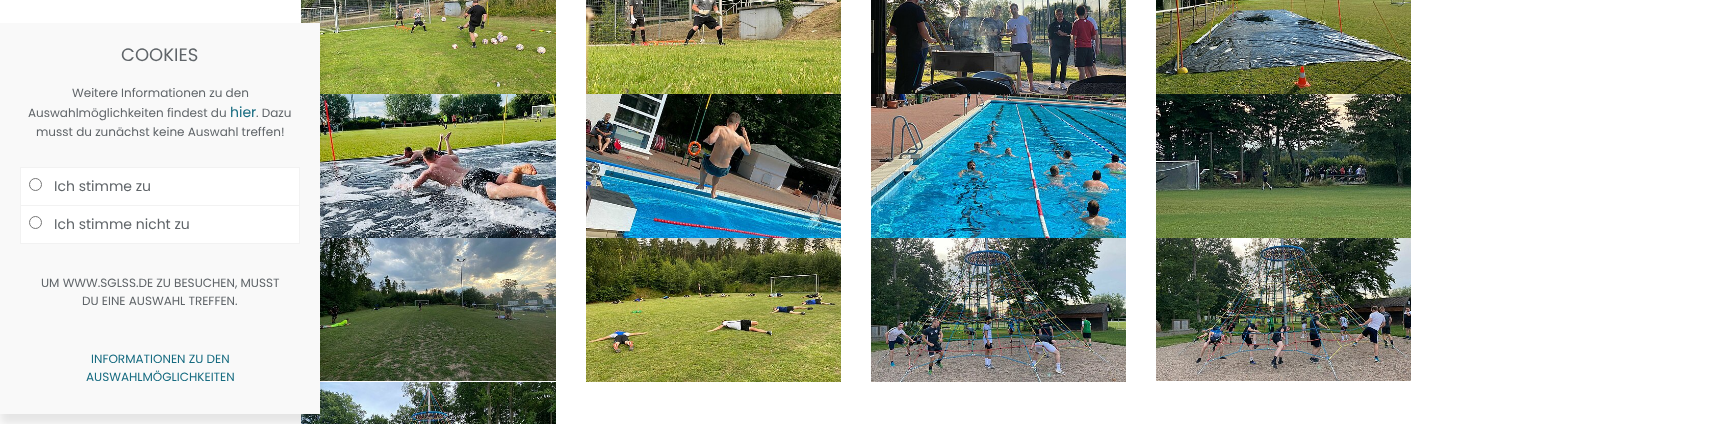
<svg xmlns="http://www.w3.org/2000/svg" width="1712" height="424">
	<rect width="100%" height="100%" fill="#FFFFFF" />
	<image x="301" y="0" width="255" height="94" href="assets/img1.png" />
	<image x="320" y="94" width="236" height="144" href="assets/img5.png" />
	<image x="320" y="238" width="236" height="143" href="assets/img9.png" />
	<image x="301" y="382" width="255" height="42" href="assets/img13.png" />
	<rect x="0" y="33" width="320" height="391" fill="#000000" fill-opacity="0.1" filter="blur(5px)" />
	<rect x="0" y="23" width="320" height="391" fill="#F9F9F9" />
	<text x="121" y="61" font-family="Poppins" font-size="18" fill="#606569">COOKIES</text>
	<g font-family="Poppins" font-size="12" fill="#606569">
		<text x="72" y="97">Weitere Informationen zu den</text>
		<text x="28" y="117">Auswahlmöglichkeiten findest du</text>
	</g>
	<text x="230" y="117" font-family="Poppins" font-size="14" fill="#166B80">hier</text>
	<g font-family="Poppins" font-size="12" fill="#606569">
		<text x="256" y="117">. Dazu</text>
		<text x="36" y="136">musst du zunächst keine Auswahl treffen!</text>
	</g>
	<rect x="20" y="167" width="280" height="1" fill="#F2F2F2" />
	<rect x="299" y="167" width="1" height="77" fill="#F2F2F2" />
	<rect x="20" y="167" width="1" height="77" fill="#F2F2F2" />
	<rect x="21" y="168" width="278" height="37" fill="#FFFFFF" />
	<rect x="21" y="205" width="278" height="1" fill="#F2F2F2" />
	<circle cx="35.5" cy="184.5" r="6" fill="none" stroke="#767676" />
	<text x="54" y="191" font-family="Poppins" font-size="14" fill="#606569">Ich stimme zu</text>
	<rect x="21" y="206" width="278" height="37" fill="#FFFFFF" />
	<rect x="21" y="243" width="278" height="1" fill="#F2F2F2" />
	<circle cx="35.5" cy="222.5" r="6" fill="none" stroke="#767676" />
	<text x="54" y="229" font-family="Poppins" font-size="14" fill="#606569">Ich stimme nicht zu</text>
	<g font-family="Poppins" font-size="12" fill="#606569">
		<text x="41" y="287">UM WWW.SGLSS.DE ZU BESUCHEN, MUSST</text>
		<text x="82" y="305">DU EINE AUSWAHL TREFFEN.</text>
	</g>
	<g font-family="Poppins" font-size="12" fill="#166B80">
		<text x="91" y="363">INFORMATIONEN ZU DEN</text>
		<text x="86" y="381">AUSWAHLMÖGLICHKEITEN</text>
	</g>
	<image x="586" y="0" width="255" height="94" href="assets/img2.png" />
	<image x="871" y="0" width="255" height="94" href="assets/img3.png" />
	<image x="1156" y="0" width="255" height="94" href="assets/img4.png" />
	<image x="586" y="94" width="255" height="144" href="assets/img6.png" />
	<image x="871" y="94" width="255" height="144" href="assets/img7.png" />
	<image x="1156" y="94" width="255" height="144" href="assets/img8.png" />
	<image x="586" y="238" width="255" height="144" href="assets/img10.png" />
	<image x="871" y="238" width="255" height="144" href="assets/img11.png" />
	<image x="1156" y="238" width="255" height="143" href="assets/img12.png" />
</svg>
